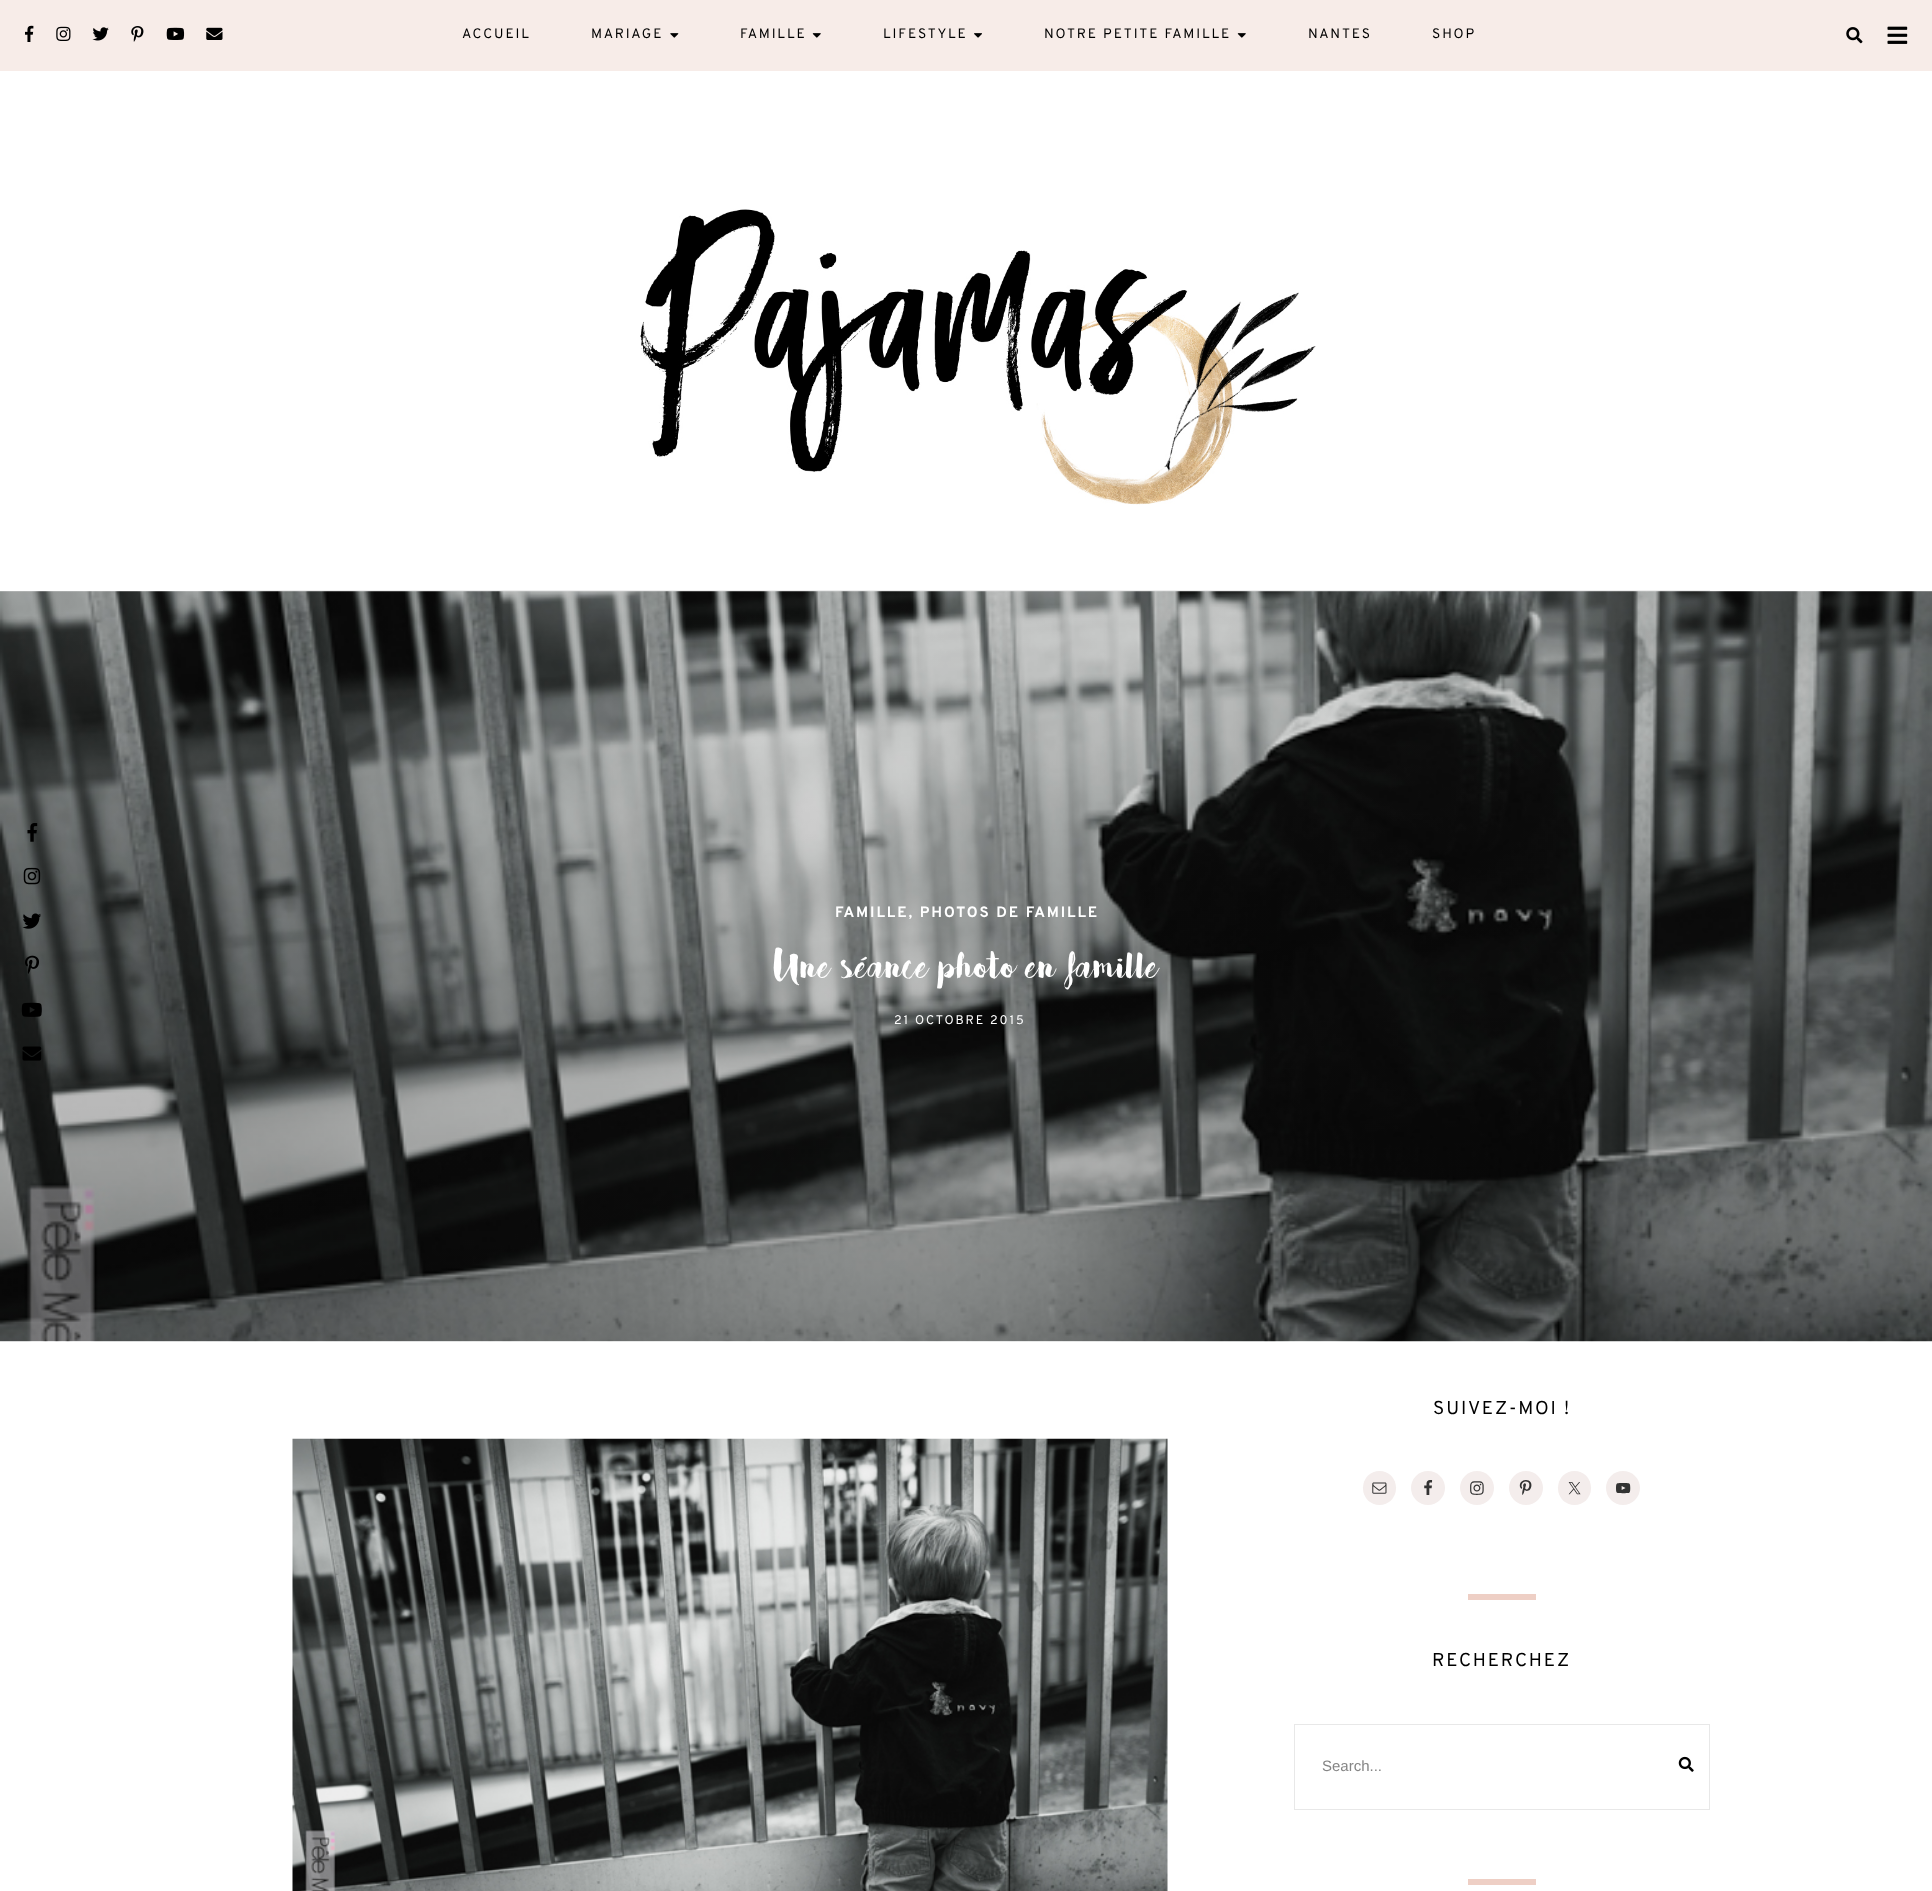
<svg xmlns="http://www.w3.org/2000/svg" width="1932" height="1891">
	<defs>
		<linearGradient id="g1" gradientUnits="userSpaceOnUse" x1="966" y1="591" x2="966" y2="1341"><stop offset="0.2" stop-color="#000000" stop-opacity="0.1" /><stop offset="1" stop-color="#000000" stop-opacity="0.3" /></linearGradient>
	</defs>
	<rect width="100%" height="100%" fill="#FFFFFF" />
	<image x="0" y="591" width="1932" height="751" href="assets/img19.png" />
	<rect x="0" y="591" width="1932" height="750" fill="url(#g1)" />
	<image x="27" y="823" width="11" height="19" href="assets/img1.png" />
	<image x="23" y="867" width="18" height="18" href="assets/img2.png" />
	<image x="22" y="913" width="19" height="16" href="assets/img3.png" />
	<image x="25" y="955" width="14" height="19" href="assets/img4.png" />
	<image x="21" y="1002" width="21" height="15" href="assets/img5.png" />
	<image x="22" y="1046" width="20" height="15" href="assets/img6.png" />
	<rect x="0" y="0" width="1932" height="71" fill="#F7ECE8" />
	<image x="25" y="25" width="9" height="17" href="assets/img7.png" />
	<image x="56" y="26" width="15" height="15" href="assets/img8.png" />
	<image x="92" y="27" width="17" height="14" href="assets/img9.png" />
	<image x="131" y="26" width="13" height="16" href="assets/img10.png" />
	<image x="166" y="27" width="19" height="13" href="assets/img11.png" />
	<image x="206" y="27" width="17" height="13" href="assets/img12.png" />
	<g font-family="Overpass" font-size="13.75" letter-spacing="1.9" fill="#000000">
		<text x="462" y="38">ACCUEIL</text>
		<text x="591" y="38">MARIAGE</text>
	</g>
	<image x="670" y="33" width="9" height="5" href="assets/img13.png" />
	<text x="740" y="38" font-family="Overpass" font-size="13.75" letter-spacing="1.9" fill="#000000">FAMILLE</text>
	<image x="812" y="33" width="9" height="5" href="assets/img14.png" />
	<text x="883" y="38" font-family="Overpass" font-size="13.75" letter-spacing="1.9" fill="#000000">LIFESTYLE</text>
	<image x="974" y="33" width="8" height="5" href="assets/img15.png" />
	<text x="1044" y="38" font-family="Overpass" font-size="13.75" letter-spacing="1.9" fill="#000000">NOTRE PETITE FAMILLE</text>
	<image x="1237" y="33" width="9" height="5" href="assets/img14.png" />
	<g font-family="Overpass" font-size="13.75" letter-spacing="1.9" fill="#000000">
		<text x="1308" y="38">NANTES</text>
		<text x="1432" y="38">SHOP</text>
	</g>
	<image x="1846" y="27" width="17" height="17" href="assets/img16.png" />
	<image x="1887" y="26" width="21" height="18" href="assets/img17.png" />
	<rect x="223" y="590" width="1487" height="1" fill="#EEEEEE" />
	<image x="640" y="209" width="676" height="296" href="assets/img18.png" />
	<text x="835" y="917" font-family="Overpass" font-size="15" font-weight="700" letter-spacing="1.9" fill="#FFFFFF">FAMILLE, PHOTOS DE FAMILLE</text>
	<text x="774" y="978" font-family="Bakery" font-size="45" letter-spacing="0.5" fill="#FFFFFF">Une séance photo en famille</text>
	<text x="894" y="1024" font-family="Overpass" font-size="12.5" letter-spacing="1.9" fill="#FFFFFF">21 OCTOBRE 2015</text>
	<image x="292" y="1438" width="876" height="453" href="assets/img20.png" />
	<text x="1433" y="1414" font-family="Overpass" font-size="18.75" letter-spacing="1.9" fill="#000000">SUIVEZ-MOI !</text>
	<rect x="1363" y="1471" width="33" height="34" rx="16.5" fill="#F4EDEC" />
	<image x="1372" y="1482" width="15" height="12" href="assets/img21.png" />
	<circle cx="1428" cy="1488" r="17" fill="#F4EDEC" />
	<image x="1424" y="1480" width="9" height="15" href="assets/img22.png" />
	<circle cx="1477" cy="1488" r="17" fill="#F4EDEC" />
	<image x="1470" y="1481" width="14" height="14" href="assets/img23.png" />
	<circle cx="1526" cy="1488" r="17" fill="#F4EDEC" />
	<image x="1519" y="1480" width="13" height="15" href="assets/img24.png" />
	<rect x="1558" y="1471" width="33" height="34" rx="16.5" fill="#F4EDEC" />
	<image x="1568" y="1482" width="13" height="13" href="assets/img25.png" />
	<circle cx="1623" cy="1488" r="17" fill="#F4EDEC" />
	<image x="1616" y="1483" width="15" height="11" href="assets/img26.png" />
	<rect x="1468" y="1594" width="68" height="6" fill="#EECFC5" />
	<text x="1432" y="1666" font-family="Overpass" font-size="18.75" letter-spacing="1.9" fill="#000000">RECHERCHEZ</text>
	<rect x="1294.5" y="1724.5" width="415" height="85" fill="none" stroke="#E8E8E8" />
	<text x="1322" y="1771" font-family="Liberation Sans" font-size="15" fill="#858585">Search...</text>
	<image x="1678" y="1756" width="16" height="16" href="assets/img27.png" />
	<rect x="1468" y="1879" width="68" height="6" fill="#EECFC5" />
</svg>
